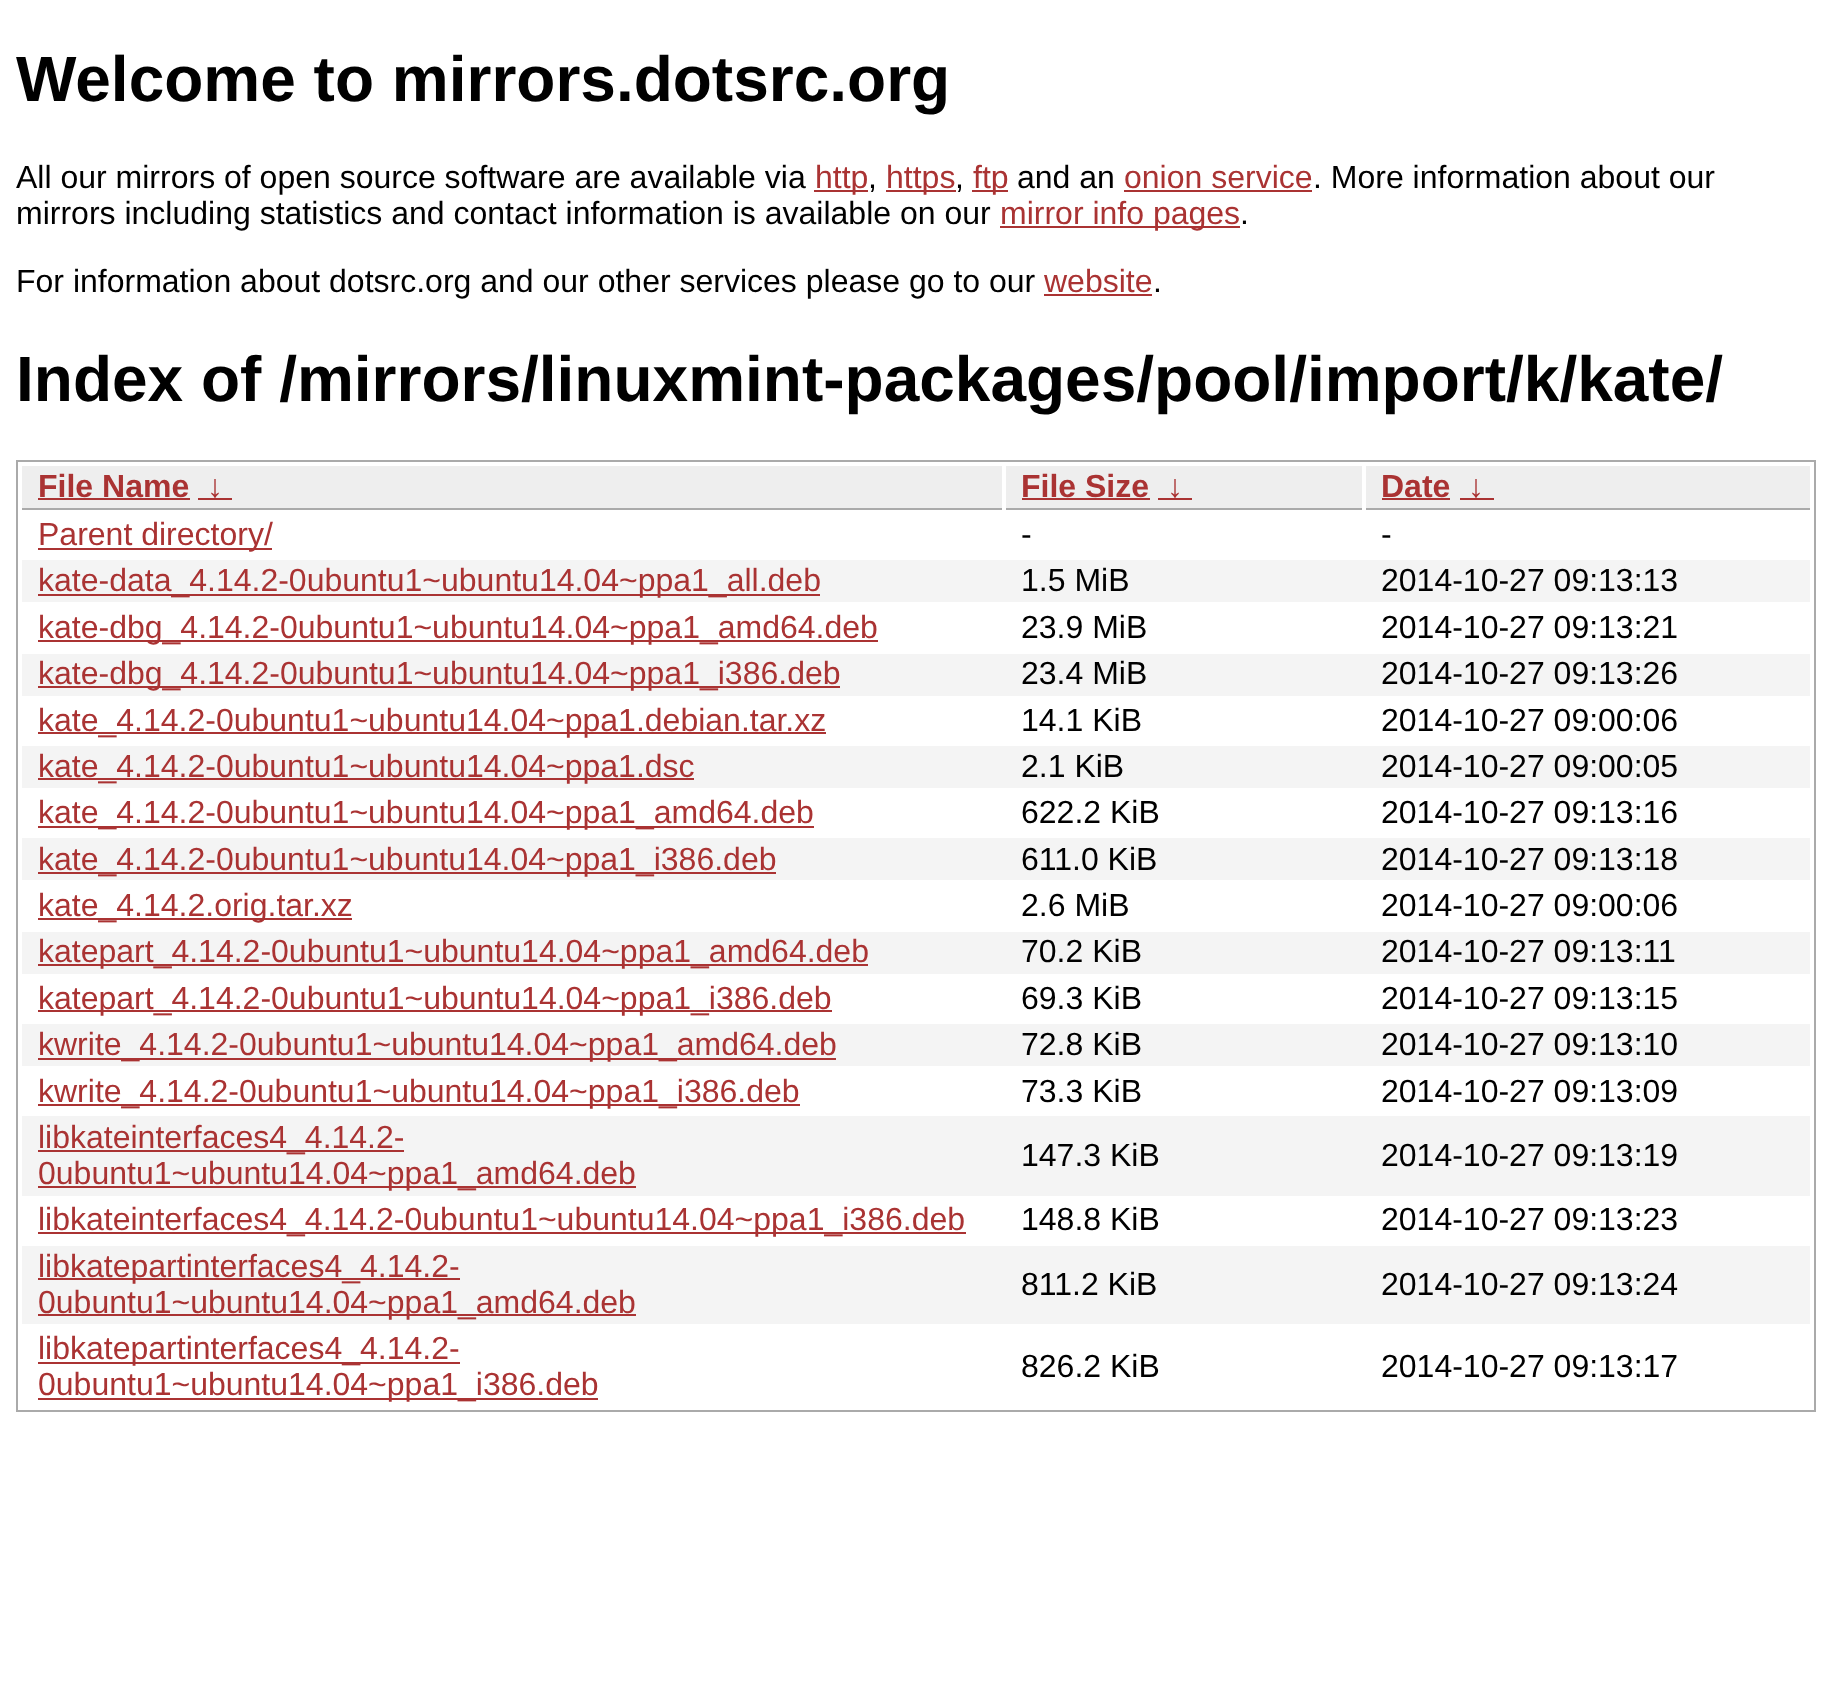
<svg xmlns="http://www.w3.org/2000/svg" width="1832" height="1694">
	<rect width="100%" height="100%" fill="#FFFFFF" />
	<text x="16" y="101" font-family="Liberation Sans" font-size="64" font-weight="700" fill="#000000">Welcome to mirrors.dotsrc.org</text>
	<text x="16" y="188" font-family="Liberation Sans" font-size="32" fill="#000000">All our mirrors of open source software are available via</text>
	<rect x="814" y="190" width="54" height="2" fill="#AA3333" />
	<text x="815" y="188" font-family="Liberation Sans" font-size="32" fill="#AA3333">http</text>
	<text x="868" y="188" font-family="Liberation Sans" font-size="32" fill="#000000">,</text>
	<rect x="886" y="190" width="70" height="2" fill="#AA3333" />
	<text x="886" y="188" font-family="Liberation Sans" font-size="32" fill="#AA3333">https</text>
	<text x="955" y="188" font-family="Liberation Sans" font-size="32" fill="#000000">,</text>
	<rect x="972" y="190" width="36" height="2" fill="#AA3333" />
	<text x="973" y="188" font-family="Liberation Sans" font-size="32" fill="#AA3333">ftp</text>
	<text x="1017" y="188" font-family="Liberation Sans" font-size="32" fill="#000000">and an</text>
	<text x="1124" y="188" font-family="Liberation Sans" font-size="32" fill="#AA3333">onion service</text>
	<rect x="1124" y="190" width="188" height="2" fill="#AA3333" />
	<g font-family="Liberation Sans" font-size="32" fill="#000000">
		<text x="1313" y="188">. More information about our</text>
		<text x="16" y="224">mirrors including statistics and contact information is available on our</text>
	</g>
	<rect x="1000" y="226" width="240" height="2" fill="#AA3333" />
	<text x="1000" y="224" font-family="Liberation Sans" font-size="32" fill="#AA3333">mirror info pages</text>
	<g font-family="Liberation Sans" font-size="32" fill="#000000">
		<text x="1240" y="224">.</text>
		<text x="16" y="292">For information about dotsrc.org and our other services please go to our</text>
	</g>
	<text x="1044" y="292" font-family="Liberation Sans" font-size="32" fill="#AA3333">website</text>
	<rect x="1044" y="294" width="108" height="2" fill="#AA3333" />
	<text x="1153" y="292" font-family="Liberation Sans" font-size="32" fill="#000000">.</text>
	<text x="16" y="401" font-family="Liberation Sans" font-size="64" font-weight="700" fill="#000000">Index of /mirrors/linuxmint-packages/pool/import/k/kate/</text>
	<rect x="17" y="461" width="1798" height="950" fill="none" stroke="#AAAAAA" stroke-width="2" />
	<rect x="22" y="466" width="980" height="42" fill="#EEEEEE" />
	<rect x="22" y="508" width="980" height="2" fill="#AAAAAA" />
	<text x="38" y="497" font-family="Liberation Sans" font-size="32" font-weight="700" fill="#AA3333">File Name</text>
	<rect x="38" y="498" width="152" height="2" fill="#AA3333" />
	<text x="207" y="497" font-family="Liberation Sans" font-size="32" font-weight="700" fill="#AA3333">↓</text>
	<rect x="198" y="498" width="34" height="2" fill="#AA3333" />
	<rect x="1006" y="466" width="356" height="42" fill="#EEEEEE" />
	<rect x="1006" y="508" width="356" height="2" fill="#AAAAAA" />
	<text x="1021" y="497" font-family="Liberation Sans" font-size="32" font-weight="700" fill="#AA3333">File Size</text>
	<rect x="1022" y="498" width="128" height="2" fill="#AA3333" />
	<text x="1167" y="497" font-family="Liberation Sans" font-size="32" font-weight="700" fill="#AA3333">↓</text>
	<rect x="1158" y="498" width="34" height="2" fill="#AA3333" />
	<rect x="1366" y="466" width="444" height="42" fill="#EEEEEE" />
	<rect x="1366" y="508" width="444" height="2" fill="#AAAAAA" />
	<text x="1381" y="497" font-family="Liberation Sans" font-size="32" font-weight="700" fill="#AA3333">Date</text>
	<rect x="1382" y="498" width="68" height="2" fill="#AA3333" />
	<text x="1468" y="497" font-family="Liberation Sans" font-size="32" font-weight="700" fill="#AA3333">↓</text>
	<rect x="1460" y="498" width="34" height="2" fill="#AA3333" />
	<rect x="38" y="548" width="234" height="2" fill="#AA3333" />
	<text x="38" y="545" font-family="Liberation Sans" font-size="32" fill="#AA3333">Parent directory/</text>
	<g font-family="Liberation Sans" font-size="32" fill="#000000">
		<text x="1021" y="545">-</text>
		<text x="1381" y="545">-</text>
	</g>
	<rect x="22" y="560" width="1788" height="42" fill="#F4F4F4" />
	<rect x="38" y="594" width="782" height="2" fill="#AA3333" />
	<text x="38" y="591" font-family="Liberation Sans" font-size="32" fill="#AA3333">kate-data_4.14.2-0ubuntu1~ubuntu14.04~ppa1_all.deb</text>
	<g font-family="Liberation Sans" font-size="32" fill="#000000">
		<text x="1021" y="591">1.5 MiB</text>
		<text x="1381" y="591">2014-10-27 09:13:13</text>
	</g>
	<rect x="38" y="640" width="840" height="2" fill="#AA3333" />
	<text x="38" y="638" font-family="Liberation Sans" font-size="32" fill="#AA3333">kate-dbg_4.14.2-0ubuntu1~ubuntu14.04~ppa1_amd64.deb</text>
	<g font-family="Liberation Sans" font-size="32" fill="#000000">
		<text x="1021" y="638">23.9 MiB</text>
		<text x="1381" y="638">2014-10-27 09:13:21</text>
	</g>
	<rect x="22" y="654" width="1788" height="42" fill="#F4F4F4" />
	<rect x="38" y="686" width="802" height="2" fill="#AA3333" />
	<text x="38" y="684" font-family="Liberation Sans" font-size="32" fill="#AA3333">kate-dbg_4.14.2-0ubuntu1~ubuntu14.04~ppa1_i386.deb</text>
	<g font-family="Liberation Sans" font-size="32" fill="#000000">
		<text x="1021" y="684">23.4 MiB</text>
		<text x="1381" y="684">2014-10-27 09:13:26</text>
	</g>
	<rect x="38" y="732" width="788" height="2" fill="#AA3333" />
	<text x="38" y="731" font-family="Liberation Sans" font-size="32" fill="#AA3333">kate_4.14.2-0ubuntu1~ubuntu14.04~ppa1.debian.tar.xz</text>
	<g font-family="Liberation Sans" font-size="32" fill="#000000">
		<text x="1021" y="731">14.1 KiB</text>
		<text x="1381" y="731">2014-10-27 09:00:06</text>
	</g>
	<rect x="22" y="746" width="1788" height="42" fill="#F4F4F4" />
	<rect x="38" y="778" width="656" height="2" fill="#AA3333" />
	<text x="38" y="777" font-family="Liberation Sans" font-size="32" fill="#AA3333">kate_4.14.2-0ubuntu1~ubuntu14.04~ppa1.dsc</text>
	<g font-family="Liberation Sans" font-size="32" fill="#000000">
		<text x="1021" y="777">2.1 KiB</text>
		<text x="1381" y="777">2014-10-27 09:00:05</text>
	</g>
	<rect x="38" y="826" width="776" height="2" fill="#AA3333" />
	<text x="38" y="823" font-family="Liberation Sans" font-size="32" fill="#AA3333">kate_4.14.2-0ubuntu1~ubuntu14.04~ppa1_amd64.deb</text>
	<g font-family="Liberation Sans" font-size="32" fill="#000000">
		<text x="1021" y="823">622.2 KiB</text>
		<text x="1381" y="823">2014-10-27 09:13:16</text>
	</g>
	<rect x="22" y="838" width="1788" height="42" fill="#F4F4F4" />
	<rect x="38" y="872" width="738" height="2" fill="#AA3333" />
	<text x="38" y="870" font-family="Liberation Sans" font-size="32" fill="#AA3333">kate_4.14.2-0ubuntu1~ubuntu14.04~ppa1_i386.deb</text>
	<g font-family="Liberation Sans" font-size="32" fill="#000000">
		<text x="1021" y="870">611.0 KiB</text>
		<text x="1381" y="870">2014-10-27 09:13:18</text>
	</g>
	<rect x="38" y="918" width="314" height="2" fill="#AA3333" />
	<text x="38" y="916" font-family="Liberation Sans" font-size="32" fill="#AA3333">kate_4.14.2.orig.tar.xz</text>
	<g font-family="Liberation Sans" font-size="32" fill="#000000">
		<text x="1021" y="916">2.6 MiB</text>
		<text x="1381" y="916">2014-10-27 09:00:06</text>
	</g>
	<rect x="22" y="932" width="1788" height="42" fill="#F4F4F4" />
	<rect x="38" y="964" width="830" height="2" fill="#AA3333" />
	<text x="38" y="962" font-family="Liberation Sans" font-size="32" fill="#AA3333">katepart_4.14.2-0ubuntu1~ubuntu14.04~ppa1_amd64.deb</text>
	<g font-family="Liberation Sans" font-size="32" fill="#000000">
		<text x="1021" y="962">70.2 KiB</text>
		<text x="1381" y="962">2014-10-27 09:13:11</text>
	</g>
	<rect x="38" y="1010" width="794" height="2" fill="#AA3333" />
	<text x="38" y="1009" font-family="Liberation Sans" font-size="32" fill="#AA3333">katepart_4.14.2-0ubuntu1~ubuntu14.04~ppa1_i386.deb</text>
	<g font-family="Liberation Sans" font-size="32" fill="#000000">
		<text x="1021" y="1009">69.3 KiB</text>
		<text x="1381" y="1009">2014-10-27 09:13:15</text>
	</g>
	<rect x="22" y="1024" width="1788" height="42" fill="#F4F4F4" />
	<rect x="38" y="1058" width="798" height="2" fill="#AA3333" />
	<text x="38" y="1055" font-family="Liberation Sans" font-size="32" fill="#AA3333">kwrite_4.14.2-0ubuntu1~ubuntu14.04~ppa1_amd64.deb</text>
	<g font-family="Liberation Sans" font-size="32" fill="#000000">
		<text x="1021" y="1055">72.8 KiB</text>
		<text x="1381" y="1055">2014-10-27 09:13:10</text>
	</g>
	<rect x="38" y="1104" width="762" height="2" fill="#AA3333" />
	<text x="38" y="1102" font-family="Liberation Sans" font-size="32" fill="#AA3333">kwrite_4.14.2-0ubuntu1~ubuntu14.04~ppa1_i386.deb</text>
	<g font-family="Liberation Sans" font-size="32" fill="#000000">
		<text x="1021" y="1102">73.3 KiB</text>
		<text x="1381" y="1102">2014-10-27 09:13:09</text>
	</g>
	<rect x="22" y="1116" width="1788" height="80" fill="#F4F4F4" />
	<rect x="38" y="1150" width="366" height="2" fill="#AA3333" />
	<text x="38" y="1148" font-family="Liberation Sans" font-size="32" fill="#AA3333">libkateinterfaces4_4.14.2-</text>
	<rect x="38" y="1186" width="598" height="2" fill="#AA3333" />
	<text x="38" y="1184" font-family="Liberation Sans" font-size="32" fill="#AA3333">0ubuntu1~ubuntu14.04~ppa1_amd64.deb</text>
	<g font-family="Liberation Sans" font-size="32" fill="#000000">
		<text x="1021" y="1166">147.3 KiB</text>
		<text x="1381" y="1166">2014-10-27 09:13:19</text>
	</g>
	<rect x="38" y="1232" width="928" height="2" fill="#AA3333" />
	<text x="38" y="1230" font-family="Liberation Sans" font-size="32" fill="#AA3333">libkateinterfaces4_4.14.2-0ubuntu1~ubuntu14.04~ppa1_i386.deb</text>
	<g font-family="Liberation Sans" font-size="32" fill="#000000">
		<text x="1021" y="1230">148.8 KiB</text>
		<text x="1381" y="1230">2014-10-27 09:13:23</text>
	</g>
	<rect x="22" y="1246" width="1788" height="78" fill="#F4F4F4" />
	<rect x="38" y="1278" width="422" height="2" fill="#AA3333" />
	<text x="38" y="1277" font-family="Liberation Sans" font-size="32" fill="#AA3333">libkatepartinterfaces4_4.14.2-</text>
	<rect x="38" y="1314" width="598" height="2" fill="#AA3333" />
	<text x="38" y="1313" font-family="Liberation Sans" font-size="32" fill="#AA3333">0ubuntu1~ubuntu14.04~ppa1_amd64.deb</text>
	<g font-family="Liberation Sans" font-size="32" fill="#000000">
		<text x="1021" y="1295">811.2 KiB</text>
		<text x="1381" y="1295">2014-10-27 09:13:24</text>
	</g>
	<rect x="38" y="1362" width="422" height="2" fill="#AA3333" />
	<text x="38" y="1359" font-family="Liberation Sans" font-size="32" fill="#AA3333">libkatepartinterfaces4_4.14.2-</text>
	<rect x="38" y="1398" width="560" height="2" fill="#AA3333" />
	<text x="38" y="1395" font-family="Liberation Sans" font-size="32" fill="#AA3333">0ubuntu1~ubuntu14.04~ppa1_i386.deb</text>
	<g font-family="Liberation Sans" font-size="32" fill="#000000">
		<text x="1021" y="1377">826.2 KiB</text>
		<text x="1381" y="1377">2014-10-27 09:13:17</text>
	</g>
</svg>
